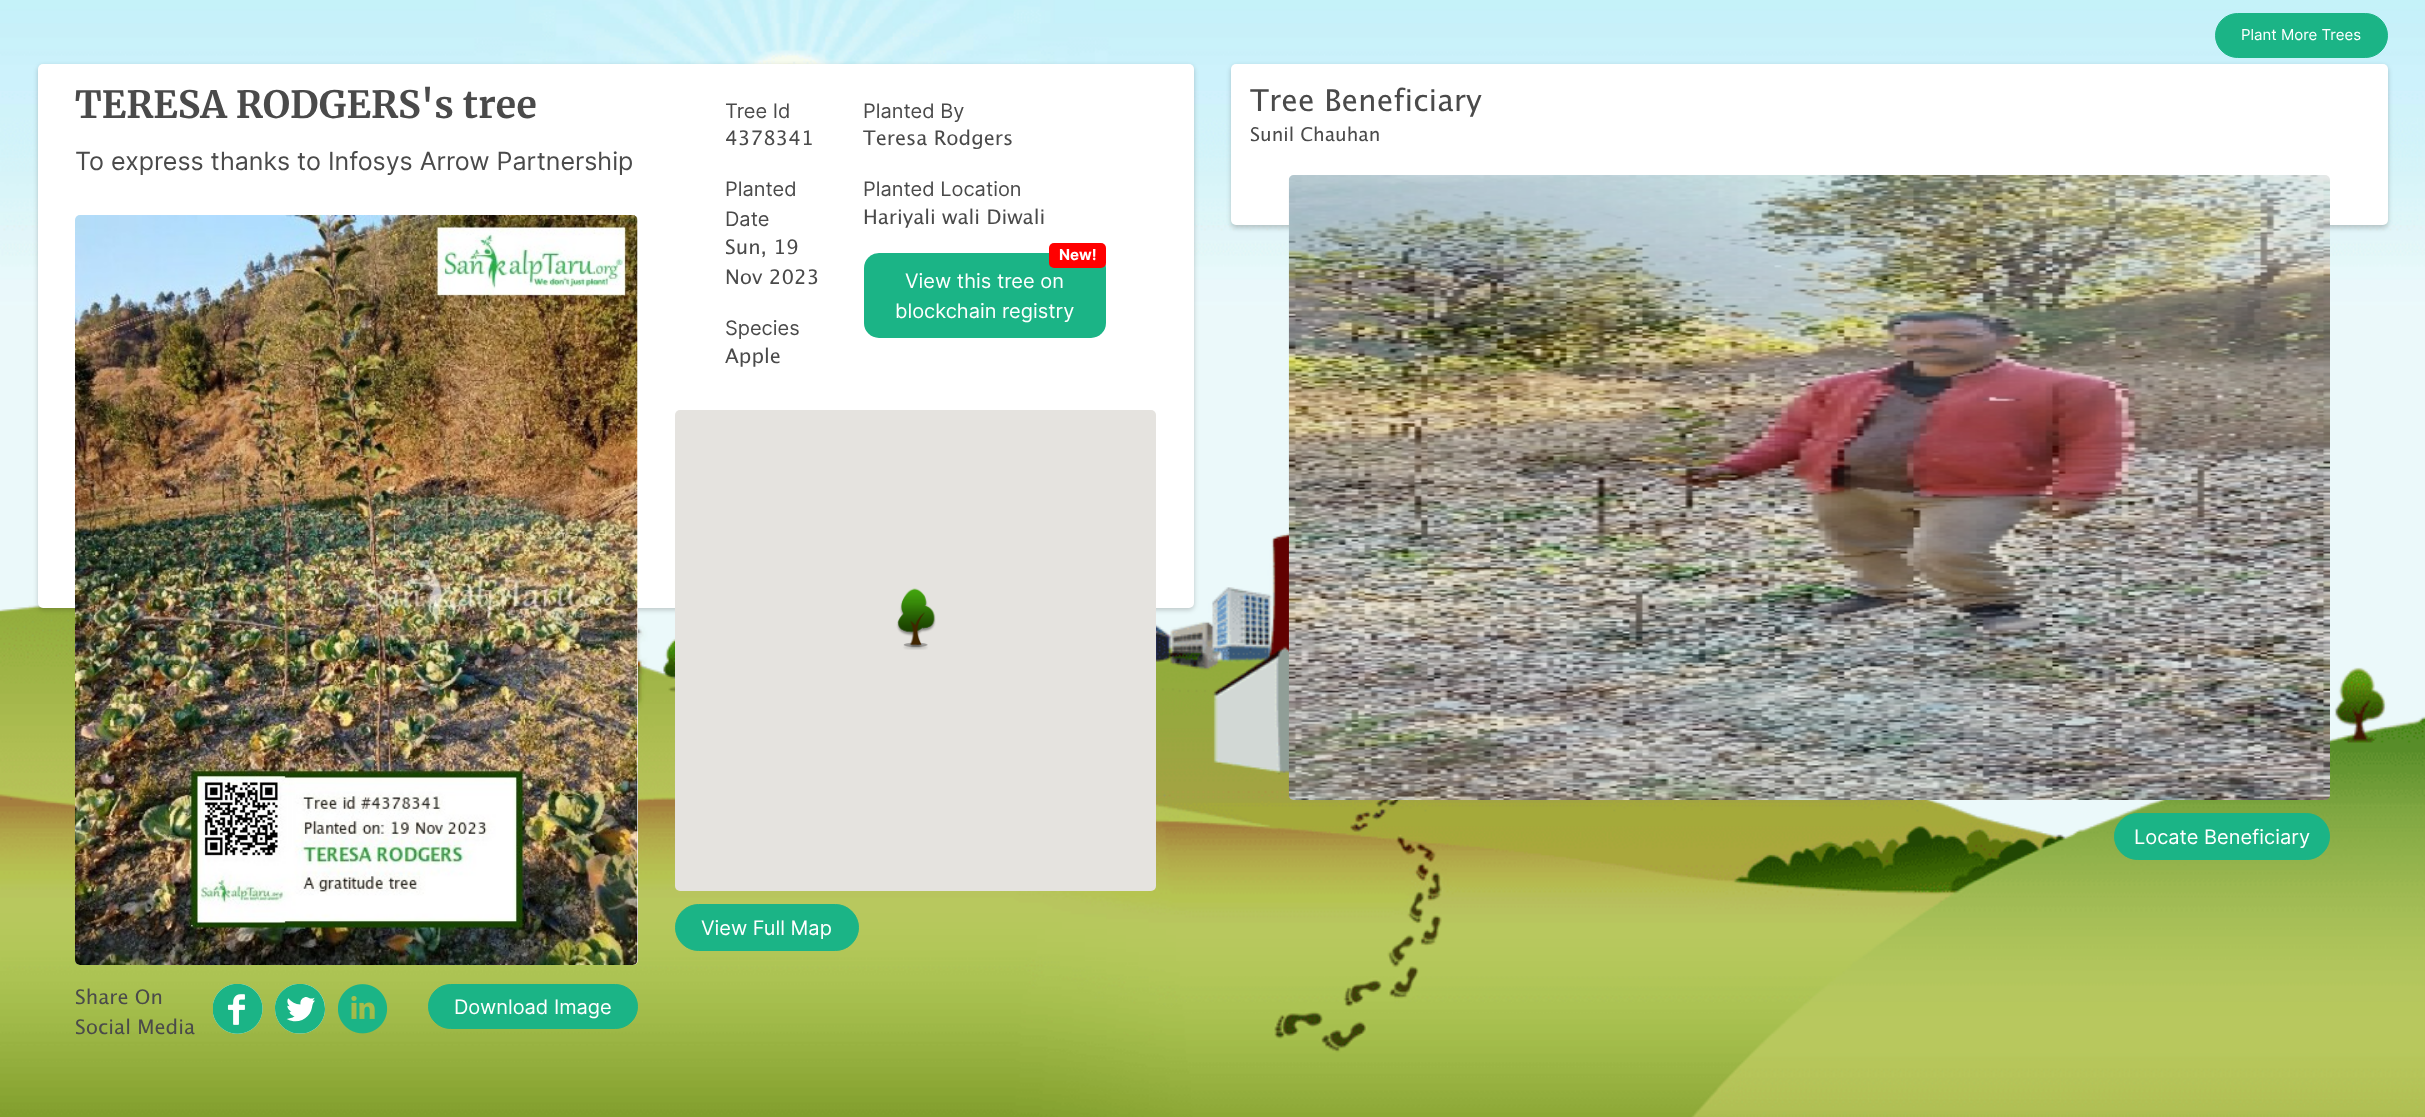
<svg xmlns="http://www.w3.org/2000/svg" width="2425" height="1117">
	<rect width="100%" height="100%" fill="#FFFFFF" />
	<image x="0" y="0" width="2425" height="1117" href="assets/img1.png" />
	<rect x="2215.5" y="13.5" width="172" height="44" rx="22" fill="#1BB486" stroke="#1BB486" />
	<text x="2241" y="40" font-family="Inter" font-size="15" fill="#FFFFFF">Plant More Trees</text>
	<rect x="38" y="66" width="1156" height="544" rx="5" fill="#000000" fill-opacity="0.2" filter="blur(2.5px)" />
	<rect x="38" y="64" width="1156" height="544" rx="5" fill="#FFFFFF" />
	<text x="75" y="118" font-family="Merriweather" font-size="37.5" font-weight="700" fill="#4A4A4A">TERESA RODGERS's tree</text>
	<text x="75" y="170" font-family="Inter" font-size="25" fill="#4A4A4A">To express thanks to Infosys Arrow Partnership</text>
	<rect x="75" y="215" width="563" height="750" rx="5" fill="#FFFFFF" />
	<image x="75" y="215" width="563" height="750" href="assets/img2.png" />
	<g font-family="Lucida Grande" font-size="20" fill="#4A4A4A">
		<text x="75" y="1004">Share On</text>
		<text x="75" y="1034">Social Media</text>
	</g>
	<image x="213" y="984" width="50" height="50" href="assets/img3.png" />
	<image x="275" y="984" width="50" height="50" href="assets/img4.png" />
	<image x="338" y="984" width="50" height="50" href="assets/img5.png" />
	<rect x="428.5" y="984.5" width="209" height="44" rx="22" fill="#1BB486" stroke="#1BB486" />
	<text x="454" y="1014" font-family="Inter" font-size="20" fill="#FFFFFF">Download Image</text>
	<text x="725" y="118" font-family="Inter" font-size="20" fill="#4A4A4A">Tree Id</text>
	<text x="725" y="145" font-family="Lucida Grande" font-size="20" fill="#4A4A4A">4378341</text>
	<g font-family="Inter" font-size="20" fill="#4A4A4A">
		<text x="725" y="196">Planted</text>
		<text x="725" y="226">Date</text>
	</g>
	<g font-family="Lucida Grande" font-size="20" fill="#4A4A4A">
		<text x="725" y="254">Sun, 19</text>
		<text x="725" y="284">Nov 2023</text>
	</g>
	<text x="725" y="335" font-family="Inter" font-size="20" fill="#4A4A4A">Species</text>
	<text x="725" y="363" font-family="Lucida Grande" font-size="20" fill="#4A4A4A">Apple</text>
	<text x="863" y="118" font-family="Inter" font-size="20" fill="#4A4A4A">Planted By</text>
	<text x="863" y="145" font-family="Lucida Grande" font-size="20" fill="#4A4A4A">Teresa Rodgers</text>
	<text x="863" y="196" font-family="Inter" font-size="20" fill="#4A4A4A">Planted Location</text>
	<text x="863" y="224" font-family="Lucida Grande" font-size="20" fill="#4A4A4A">Hariyali wali Diwali</text>
	<rect x="864" y="253" width="242" height="85" rx="15" fill="#1BB486" />
	<rect x="1049" y="243" width="57" height="25" rx="5" fill="#FF0000" />
	<text x="1059" y="260" font-family="Inter" font-size="15" font-weight="700" fill="#FFFFFF">New!</text>
	<g font-family="Inter" font-size="20" fill="#FFFFFF">
		<text x="905" y="288">View this tree on</text>
		<text x="895" y="318">blockchain registry</text>
	</g>
	<rect x="675" y="410" width="481" height="481" rx="5" fill="#E5E3DF" />
	<image x="896" y="588" width="40" height="62" href="assets/img6.png" />
	<rect x="675.5" y="904.5" width="183" height="46" rx="23" fill="#1BB486" stroke="#1BB486" />
	<text x="701" y="935" font-family="Inter" font-size="20" fill="#FFFFFF">View Full Map</text>
	<rect x="1231" y="66" width="1157" height="162" rx="5" fill="#000000" fill-opacity="0.2" filter="blur(2.5px)" />
	<rect x="1231" y="64" width="1157" height="161" rx="5" fill="#FFFFFF" />
	<text x="1250" y="111" font-family="Lucida Grande" font-size="30" fill="#4A4A4A">Tree Beneficiary</text>
	<text x="1250" y="141" font-family="Lucida Grande" font-size="18.75" fill="#4A4A4A">Sunil Chauhan</text>
	<image x="1288" y="175" width="1042" height="625" href="assets/img7.png" />
	<rect x="2114.5" y="813.5" width="215" height="46" rx="23" fill="#1BB486" stroke="#1BB486" />
	<text x="2134" y="844" font-family="Inter" font-size="20" fill="#FFFFFF">Locate Beneficiary</text>
</svg>
